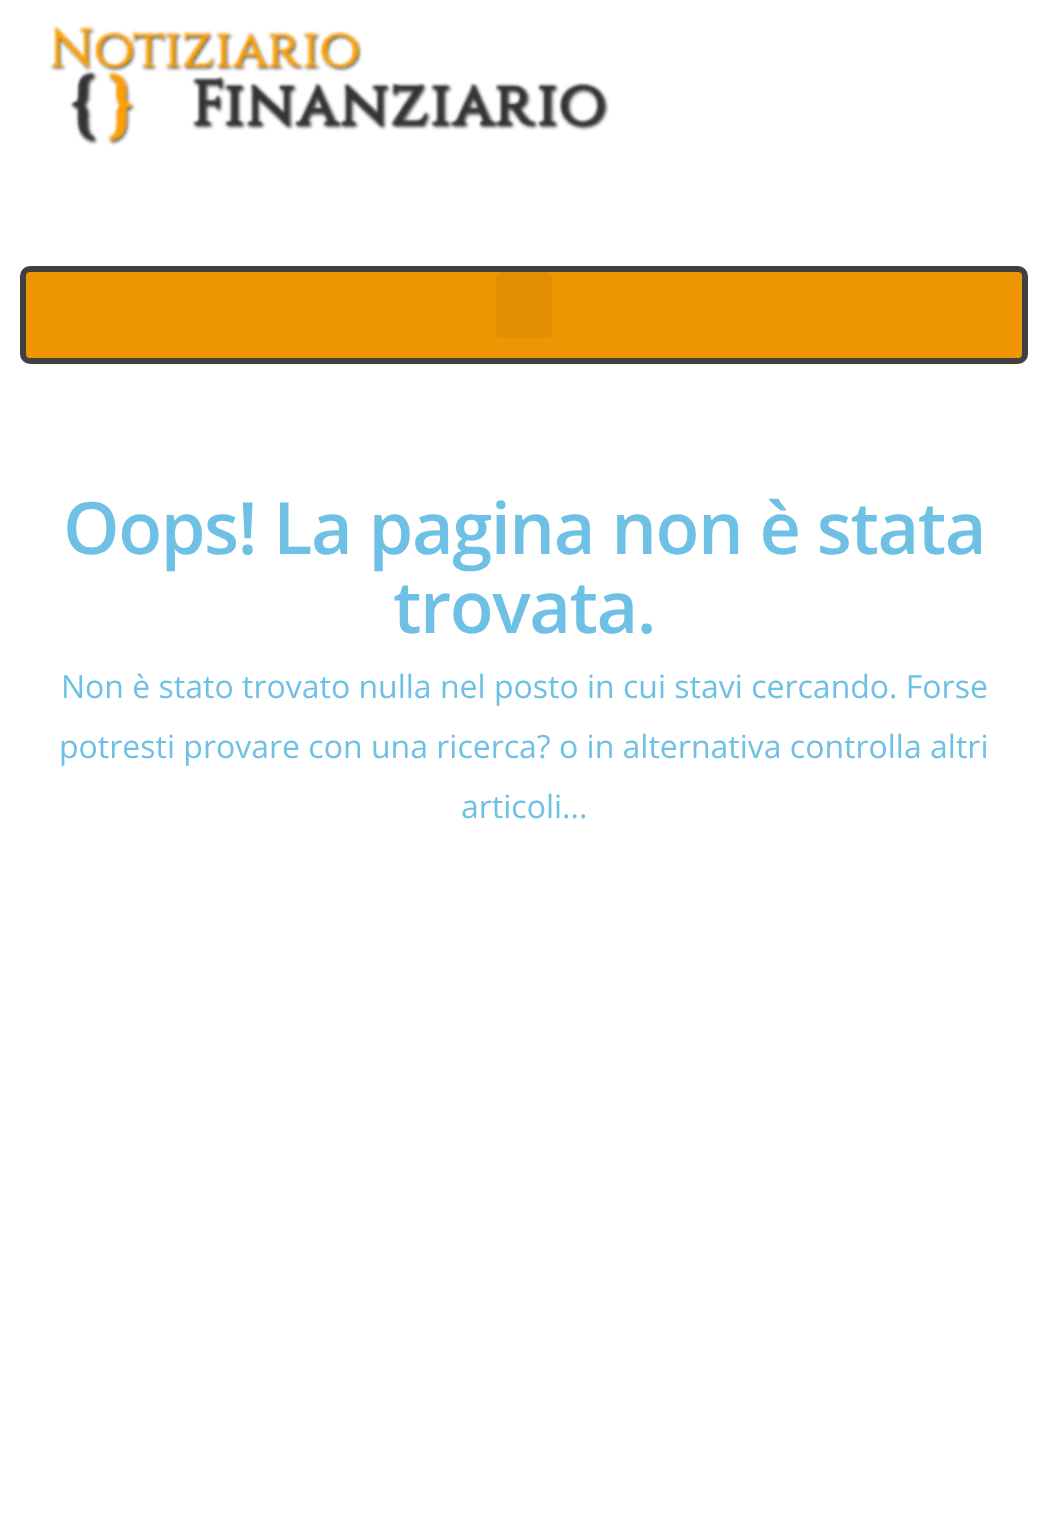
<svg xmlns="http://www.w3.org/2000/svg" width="1048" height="1528">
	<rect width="100%" height="100%" fill="#FFFFFF" />
	<image x="49" y="25" width="560" height="121" href="assets/img1.png" />
	<rect x="23" y="269" width="1002" height="92" rx="7" fill="#EE9504" stroke="#404040" stroke-width="6" />
	<rect x="496" y="272" width="56" height="66" rx="6" fill="#E28E04" />
	<g font-family="Open Sans" font-size="72" font-weight="600" letter-spacing="-1.45" fill="#6EC1E4">
		<text x="63" y="554">Oops! La pagina non è stata</text>
		<text x="393" y="633">trovata.</text>
	</g>
	<g font-family="Open Sans" font-size="32" fill="#6EC1E4">
		<text x="61" y="698">Non è stato trovato nulla nel posto in cui stavi cercando. Forse</text>
		<text x="59" y="758">potresti provare con una ricerca? o in alternativa controlla altri</text>
		<text x="461" y="818">articoli...</text>
	</g>
</svg>
